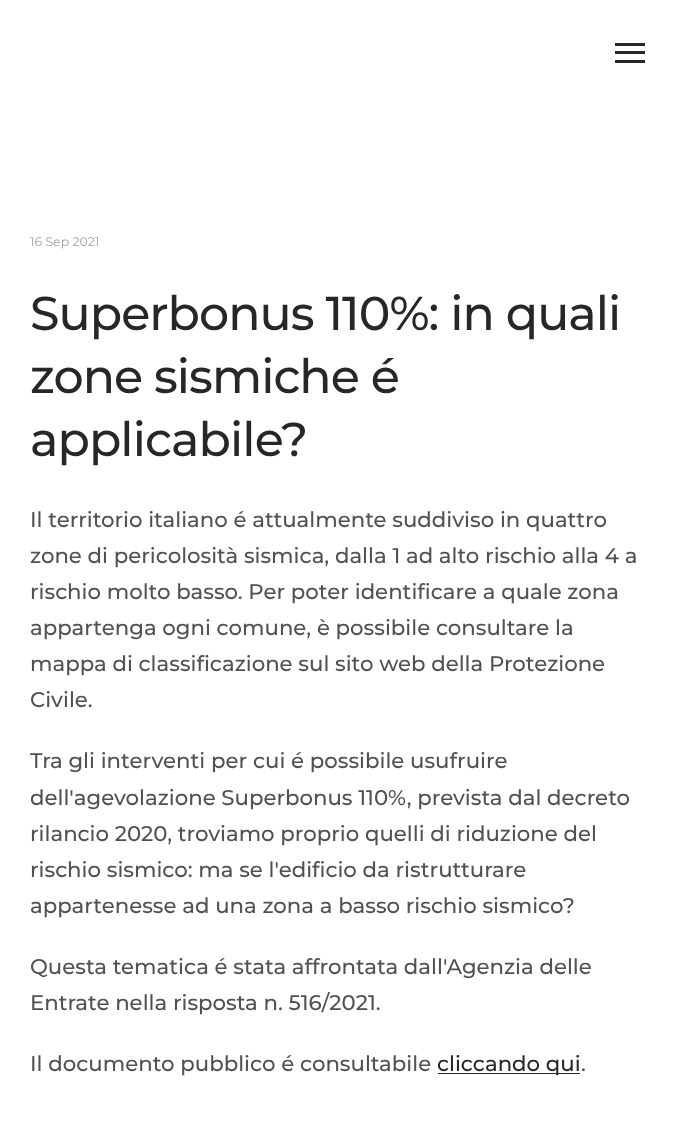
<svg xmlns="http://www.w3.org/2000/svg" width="685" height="1124">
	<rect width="100%" height="100%" fill="#FFFFFF" />
	<rect x="615" y="43" width="30" height="3" fill="#272727" />
	<rect x="615" y="51" width="30" height="3" fill="#272727" />
	<rect x="615" y="60" width="30" height="3" fill="#272727" />
	<text x="30" y="246" font-family="Montserrat" font-size="12.5" fill="#A2A2A2">16 Sep 2021</text>
	<g font-family="Montserrat" font-size="47.5" font-weight="500" letter-spacing="-0.95" fill="#272727">
		<text x="30" y="330">Superbonus 110%: in quali</text>
		<text x="30" y="393">zone sismiche é</text>
		<text x="30" y="456">applicabile?</text>
	</g>
	<g font-family="Montserrat" font-size="21.25" font-weight="500" fill="#515151">
		<text x="30" y="527">Il territorio italiano é attualmente suddiviso in quattro</text>
		<text x="30" y="563">zone di pericolosità sismica, dalla 1 ad alto rischio alla 4 a</text>
		<text x="30" y="599">rischio molto basso. Per poter identificare a quale zona</text>
		<text x="30" y="635">appartenga ogni comune, è possibile consultare la</text>
		<text x="30" y="671">mappa di classificazione sul sito web della Protezione</text>
		<text x="30" y="707">Civile.</text>
		<text x="30" y="768">Tra gli interventi per cui é possibile usufruire</text>
		<text x="30" y="805">dell'agevolazione Superbonus 110%, prevista dal decreto</text>
		<text x="30" y="841">rilancio 2020, troviamo proprio quelli di riduzione del</text>
		<text x="30" y="877">rischio sismico: ma se l'edificio da ristrutturare</text>
		<text x="30" y="913">appartenesse ad una zona a basso rischio sismico?</text>
		<text x="30" y="974">Questa tematica é stata affrontata dall'Agenzia delle</text>
		<text x="30" y="1010">Entrate nella risposta n. 516/2021.</text>
		<text x="30" y="1071">Il documento pubblico é consultabile</text>
	</g>
	<rect x="438" y="1073" width="142" height="1" fill="#282828" />
	<text x="437" y="1071" font-family="Montserrat" font-size="21.25" font-weight="500" fill="#272727">cliccando qui</text>
	<text x="581" y="1071" font-family="Montserrat" font-size="21.25" font-weight="500" fill="#515151">.</text>
</svg>
